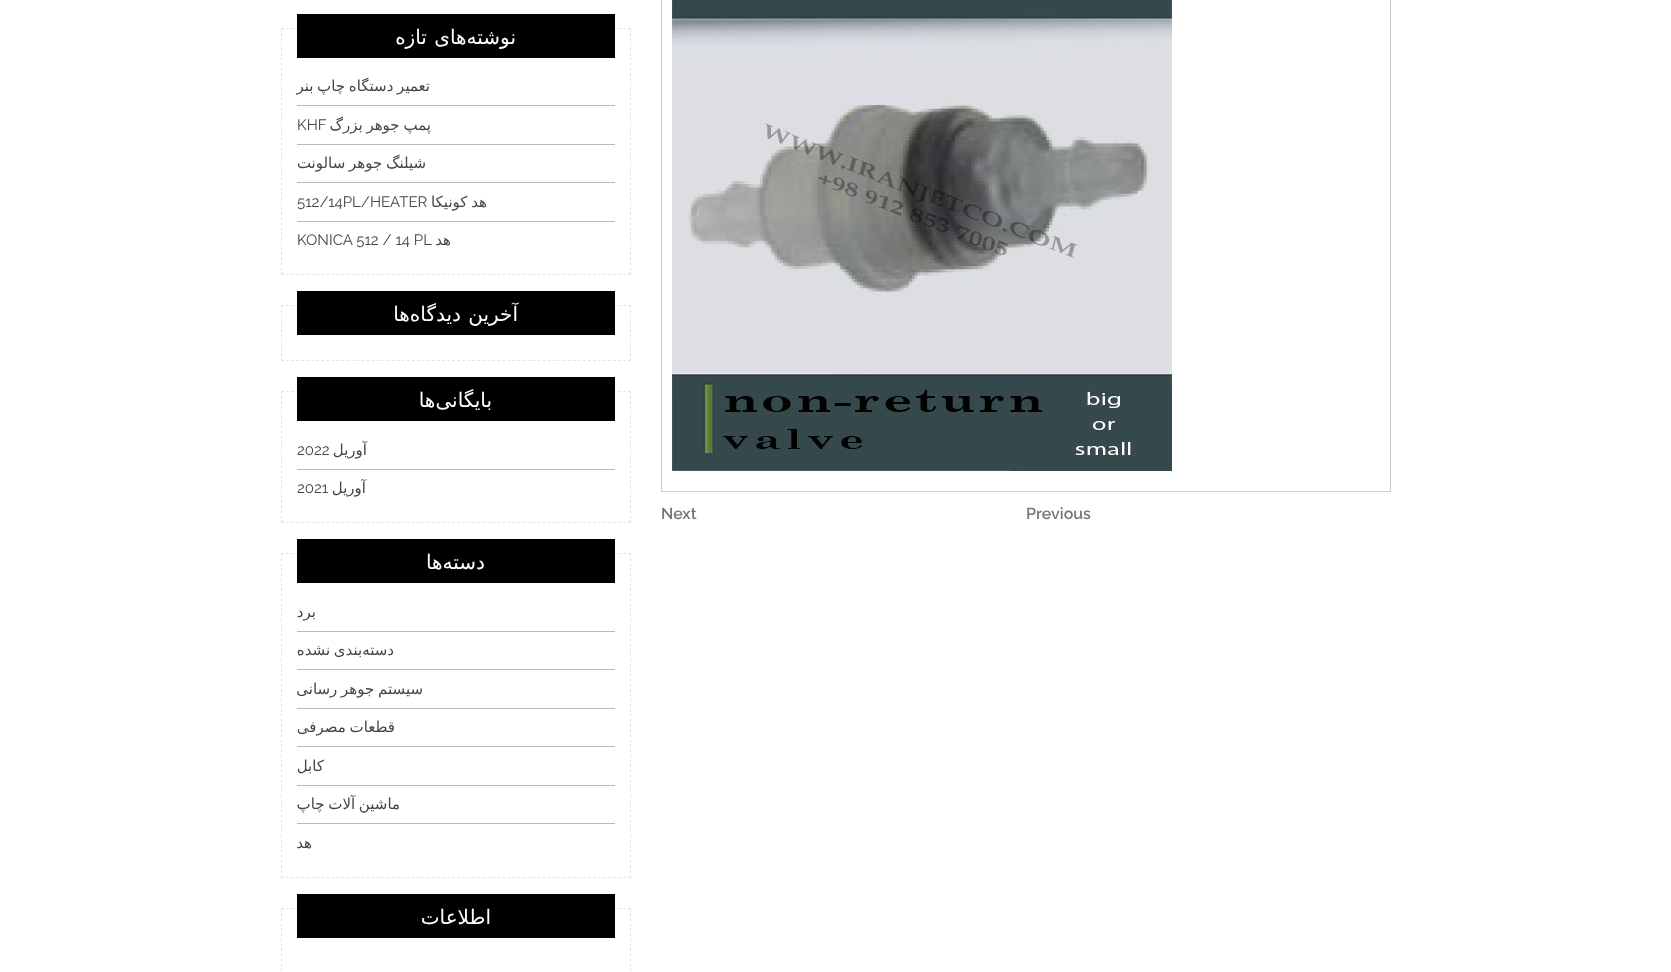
<svg xmlns="http://www.w3.org/2000/svg" width="1671" height="972">
	<rect width="100%" height="100%" fill="#FFFFFF" />
	<rect x="661.5" y="-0.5" width="729" height="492" fill="none" stroke="#CDCDCD" />
	<image x="672" y="0" width="500" height="471" href="assets/img1.png" />
	<g font-family="Raleway" font-size="16" font-weight="600" fill="#767676">
		<text x="1026" y="519">Previous</text>
		<text x="661" y="519">Next</text>
	</g>
	<path d="M281 28.5H631" fill="none" stroke="#E4E4E4" stroke-dasharray="3 2.03" />
	<path d="M630.5 28V275" fill="none" stroke="#E4E4E4" stroke-dasharray="3 1.98" />
	<path d="M281 274.5H631" fill="none" stroke="#E4E4E4" stroke-dasharray="3 2.03" />
	<path d="M281.5 28V275" fill="none" stroke="#E4E4E4" stroke-dasharray="3 1.98" />
	<rect x="297" y="14" width="318" height="44" fill="#000000" />
	<text x="516" y="44" word-spacing="1" font-family="DejaVu Sans" font-size="20" direction="rtl" fill="#FFFFFF">نوشته‌های تازه</text>
	<rect x="297" y="105" width="318" height="1" fill="#BBBBBB" />
	<text x="430" y="91" word-spacing="-1" font-family="DejaVu Sans" font-size="15" direction="rtl" fill="#464646">تعمیر دستگاه چاپ بنر</text>
	<rect x="297" y="144" width="318" height="1" fill="#BBBBBB" />
	<text x="431" y="130" word-spacing="-1" font-family="DejaVu Sans" font-size="15" direction="rtl" fill="#464646">پمپ جوهر بزرگ</text>
	<text x="297" y="130" font-family="Raleway" font-size="15" fill="#464646">KHF</text>
	<rect x="297" y="182" width="318" height="1" fill="#BBBBBB" />
	<text x="426" y="168" word-spacing="-1" font-family="DejaVu Sans" font-size="15" direction="rtl" fill="#464646">شیلنگ جوهر سالونت</text>
	<rect x="297" y="221" width="318" height="1" fill="#BBBBBB" />
	<text x="487" y="207" word-spacing="-1" font-family="DejaVu Sans" font-size="15" direction="rtl" fill="#464646">هد کونیکا</text>
	<text x="297" y="207" font-family="Raleway" font-size="15" fill="#464646">512/14PL/HEATER</text>
	<text x="451" y="245" font-family="DejaVu Sans" font-size="15" direction="rtl" fill="#464646">هد</text>
	<text x="297" y="245" font-family="Raleway" font-size="15" fill="#464646">KONICA 512 / 14 PL</text>
	<path d="M281 305.5H631" fill="none" stroke="#E4E4E4" stroke-dasharray="3 2.03" />
	<path d="M630.5 305V361" fill="none" stroke="#E4E4E4" stroke-dasharray="3 1.82" />
	<path d="M281 360.5H631" fill="none" stroke="#E4E4E4" stroke-dasharray="3 2.03" />
	<path d="M281.5 305V361" fill="none" stroke="#E4E4E4" stroke-dasharray="3 1.82" />
	<rect x="297" y="291" width="318" height="44" fill="#000000" />
	<text x="518" y="321" word-spacing="1" font-family="DejaVu Sans" font-size="20" direction="rtl" fill="#FFFFFF">آخرین دیدگاه‌ها</text>
	<path d="M281 391.5H631" fill="none" stroke="#E4E4E4" stroke-dasharray="3 2.03" />
	<path d="M630.5 391V523" fill="none" stroke="#E4E4E4" stroke-dasharray="3 1.96" />
	<path d="M281 522.5H631" fill="none" stroke="#E4E4E4" stroke-dasharray="3 2.03" />
	<path d="M281.5 391V523" fill="none" stroke="#E4E4E4" stroke-dasharray="3 1.96" />
	<rect x="297" y="377" width="318" height="44" fill="#000000" />
	<text x="492" y="407" font-family="DejaVu Sans" font-size="20" direction="rtl" fill="#FFFFFF">بایگانی‌ها</text>
	<rect x="297" y="469" width="318" height="1" fill="#BBBBBB" />
	<text x="367" y="455" font-family="DejaVu Sans" font-size="15" direction="rtl" fill="#464646">آوریل</text>
	<text x="297" y="455" font-family="Raleway" font-size="15" fill="#464646">2022</text>
	<text x="366" y="493" font-family="DejaVu Sans" font-size="15" direction="rtl" fill="#464646">آوریل</text>
	<text x="297" y="493" font-family="Raleway" font-size="15" fill="#464646">2021</text>
	<path d="M281 553.5H631" fill="none" stroke="#E4E4E4" stroke-dasharray="3 2.03" />
	<path d="M630.5 553V878" fill="none" stroke="#E4E4E4" stroke-dasharray="3 2.03" />
	<path d="M281 877.5H631" fill="none" stroke="#E4E4E4" stroke-dasharray="3 2.03" />
	<path d="M281.5 553V878" fill="none" stroke="#E4E4E4" stroke-dasharray="3 2.03" />
	<rect x="297" y="539" width="318" height="44" fill="#000000" />
	<text x="485" y="569" font-family="DejaVu Sans" font-size="20" direction="rtl" fill="#FFFFFF">دسته‌ها</text>
	<rect x="297" y="631" width="318" height="1" fill="#BBBBBB" />
	<text x="316" y="617" font-family="DejaVu Sans" font-size="15" direction="rtl" fill="#464646">برد</text>
	<rect x="297" y="669" width="318" height="1" fill="#BBBBBB" />
	<text x="394" y="655" word-spacing="-1" font-family="DejaVu Sans" font-size="15" direction="rtl" fill="#464646">دسته‌بندی نشده</text>
	<rect x="297" y="708" width="318" height="1" fill="#BBBBBB" />
	<text x="423" y="694" word-spacing="-1" font-family="DejaVu Sans" font-size="15" direction="rtl" fill="#464646">سیستم جوهر رسانی</text>
	<rect x="297" y="746" width="318" height="1" fill="#BBBBBB" />
	<text x="395" y="732" word-spacing="-1" font-family="DejaVu Sans" font-size="15" direction="rtl" fill="#464646">قطعات مصرفی</text>
	<rect x="297" y="785" width="318" height="1" fill="#BBBBBB" />
	<text x="324" y="771" font-family="DejaVu Sans" font-size="15" direction="rtl" fill="#464646">کابل</text>
	<rect x="297" y="823" width="318" height="1" fill="#BBBBBB" />
	<g font-family="DejaVu Sans" font-size="15" direction="rtl" fill="#464646">
		<text x="400" y="809" word-spacing="-1">ماشین آلات چاپ</text>
		<text x="312" y="848">هد</text>
	</g>
	<path d="M281 908.5H631" fill="none" stroke="#E4E4E4" stroke-dasharray="3 2.03" />
	<path d="M630.5 908V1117" fill="none" stroke="#E4E4E4" stroke-dasharray="3 2.02" />
	<path d="M281.5 908V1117" fill="none" stroke="#E4E4E4" stroke-dasharray="3 2.02" />
	<rect x="297" y="894" width="318" height="44" fill="#000000" />
	<text x="491" y="924" font-family="DejaVu Sans" font-size="20" direction="rtl" fill="#FFFFFF">اطلاعات</text>
</svg>
